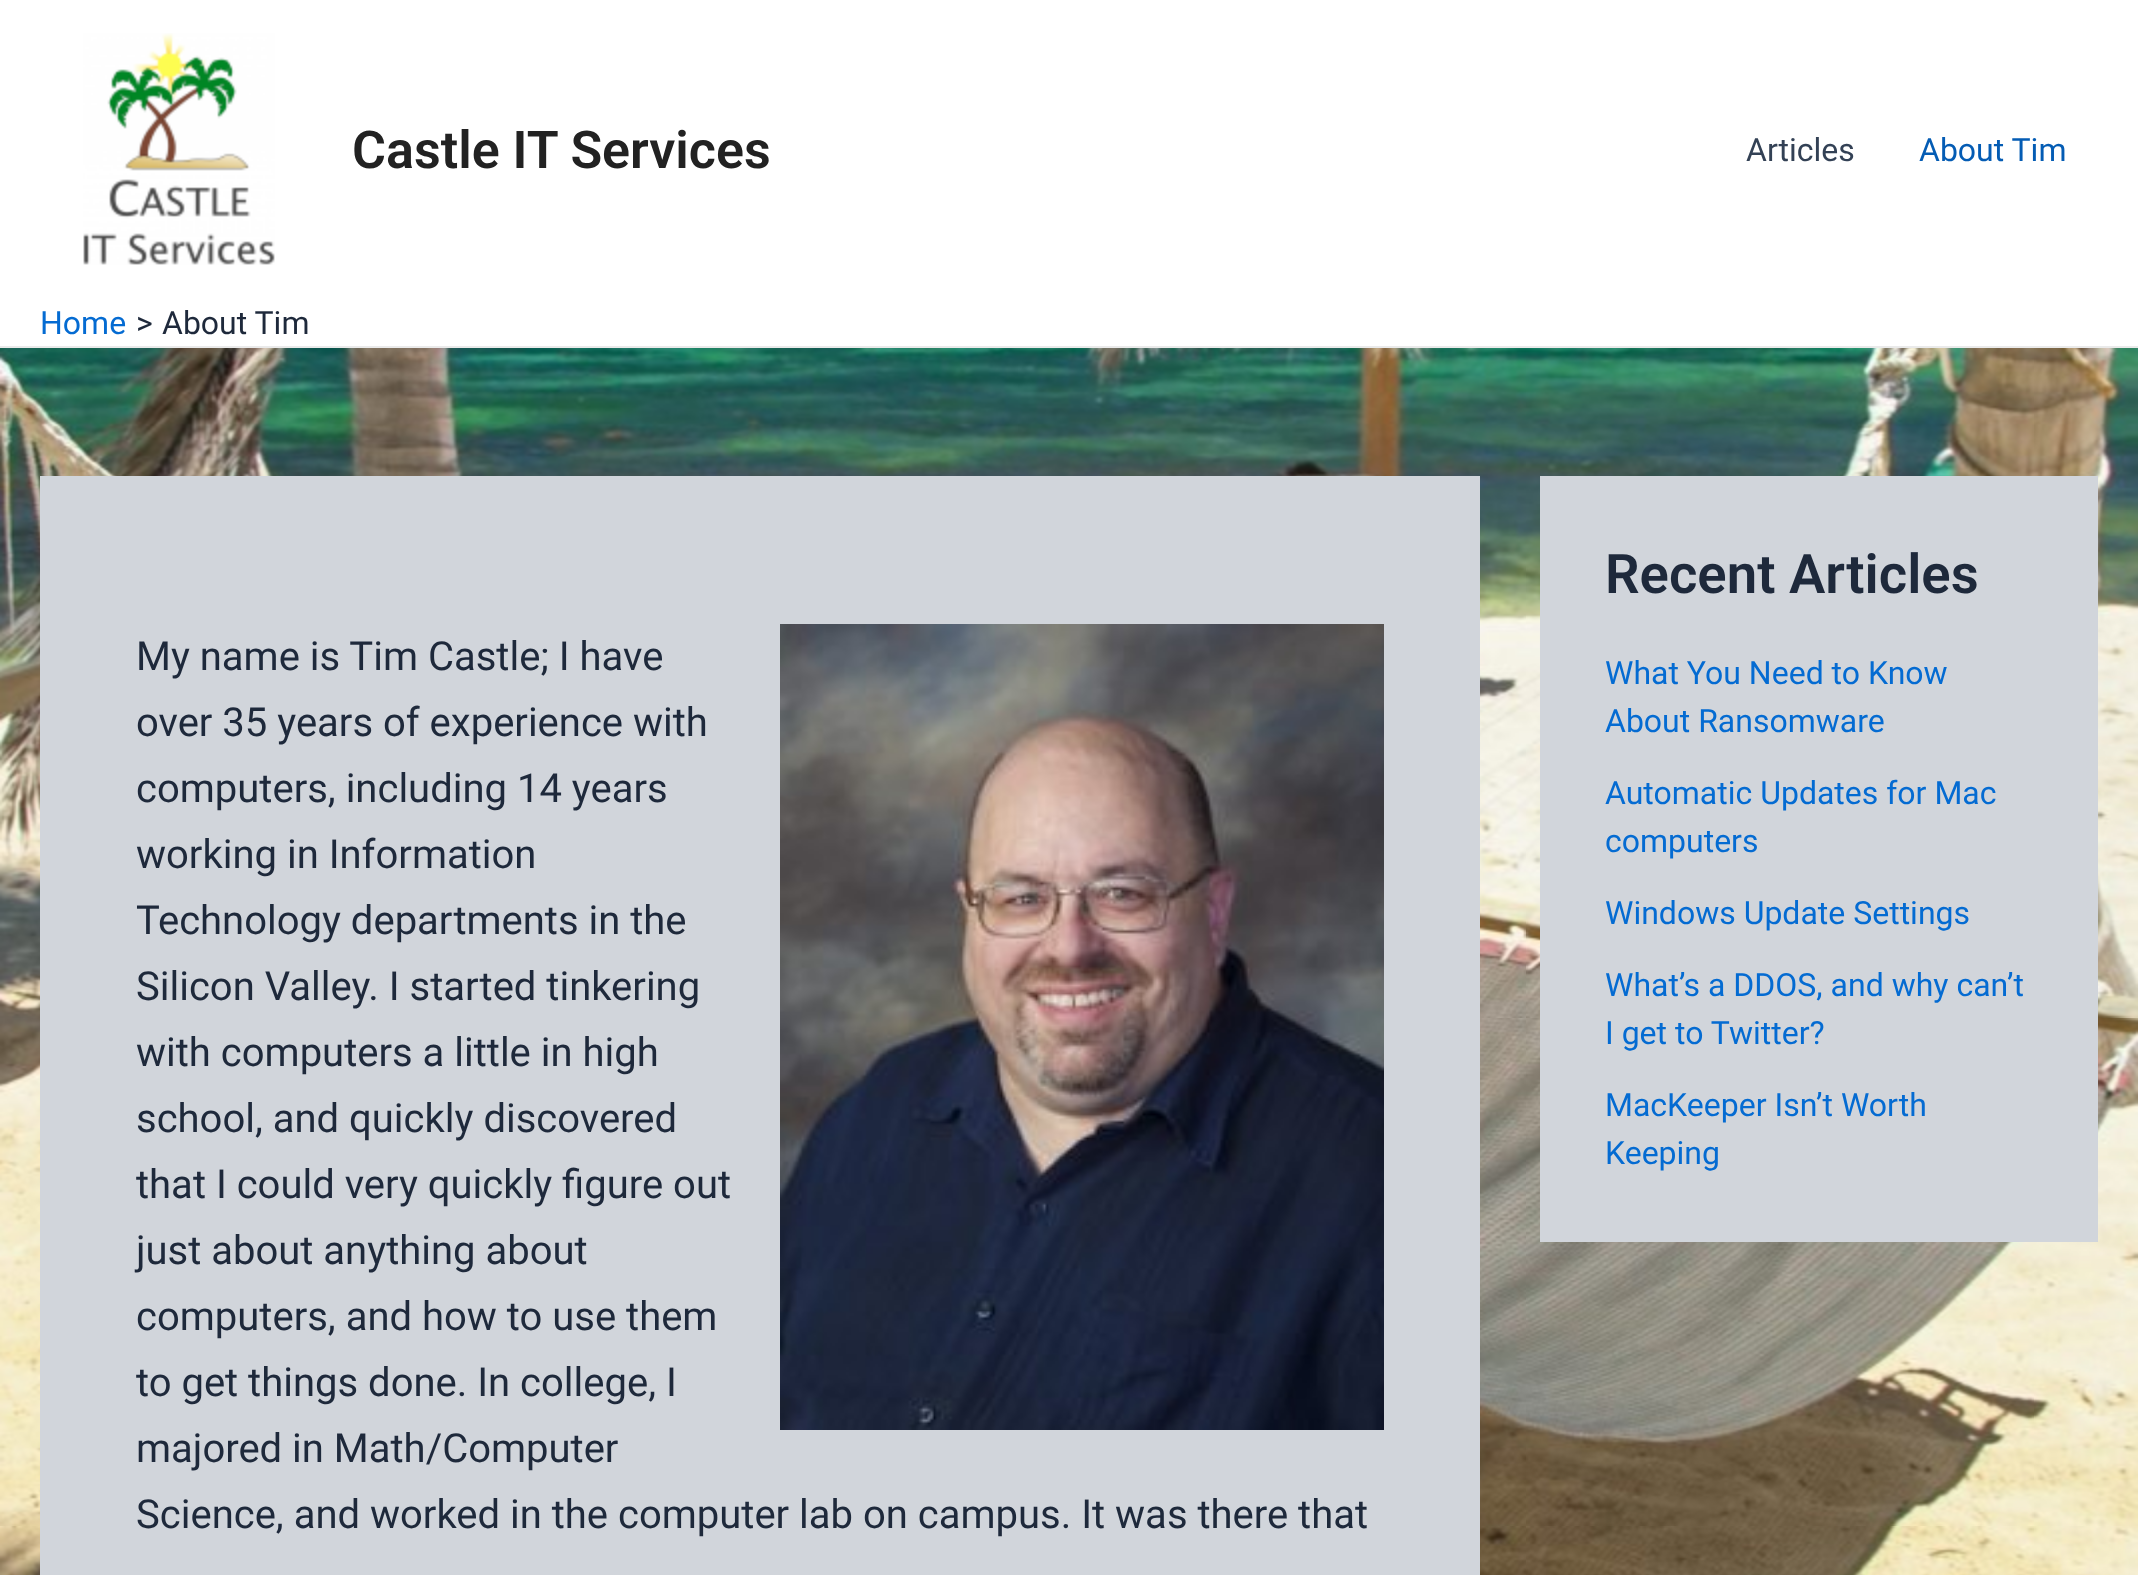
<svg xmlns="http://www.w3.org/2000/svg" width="2138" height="1575">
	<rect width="100%" height="100%" fill="#FFFFFF" />
	<image x="0" y="348" width="2138" height="1227" href="assets/img1.png" />
	<rect x="0" y="346" width="2138" height="2" fill="#EAEAEA" />
	<image x="83" y="33" width="192" height="232" href="assets/img2.png" />
	<text x="352" y="168" font-family="Roboto" font-size="52" font-weight="600" fill="#222222">Castle IT Services</text>
	<text x="1746" y="161" font-family="Roboto" font-size="32" fill="#334155">Articles</text>
	<text x="1919" y="161" font-family="Roboto" font-size="32" fill="#045CB4">About Tim</text>
	<text x="40" y="334" font-family="Roboto" font-size="32" fill="#046BD2">Home</text>
	<g font-family="Roboto" font-size="32" fill="#1E293B">
		<text x="136" y="334">&gt;</text>
		<text x="162" y="334">About Tim</text>
	</g>
	<rect x="40" y="476" width="1440" height="1099" fill="#D1D5DB" />
	<image x="780" y="624" width="604" height="806" href="assets/img3.png" />
	<g font-family="Roboto" font-size="40" fill="#1E293B">
		<text x="136" y="670">My name is Tim Castle; I have</text>
		<text x="136" y="736">over 35 years of experience with</text>
		<text x="136" y="802">computers, including 14 years</text>
		<text x="136" y="868">working in Information</text>
		<text x="136" y="934">Technology departments in the</text>
		<text x="136" y="1000">Silicon Valley. I started tinkering</text>
		<text x="136" y="1066">with computers a little in high</text>
		<text x="136" y="1132">school, and quickly discovered</text>
		<text x="136" y="1198">that I could very quickly figure out</text>
		<text x="136" y="1264">just about anything about</text>
		<text x="136" y="1330">computers, and how to use them</text>
		<text x="136" y="1396">to get things done. In college, I</text>
		<text x="136" y="1462">majored in Math/Computer</text>
		<text x="136" y="1528">Science, and worked in the computer lab on campus. It was there that</text>
	</g>
	<rect x="1540" y="476" width="558" height="766" fill="#D1D5DB" />
	<text x="1605" y="593" font-family="Roboto" font-size="54.5" font-weight="600" fill="#1E293B">Recent Articles</text>
	<g font-family="Roboto" font-size="32" fill="#046BD2">
		<text x="1605" y="684">What You Need to Know</text>
		<text x="1605" y="732">About Ransomware</text>
		<text x="1605" y="804">Automatic Updates for Mac</text>
		<text x="1605" y="852">computers</text>
		<text x="1605" y="924">Windows Update Settings</text>
		<text x="1605" y="996">What’s a DDOS, and why can’t</text>
		<text x="1605" y="1044">I get to Twitter?</text>
		<text x="1605" y="1116">MacKeeper Isn’t Worth</text>
		<text x="1605" y="1164">Keeping</text>
	</g>
</svg>
